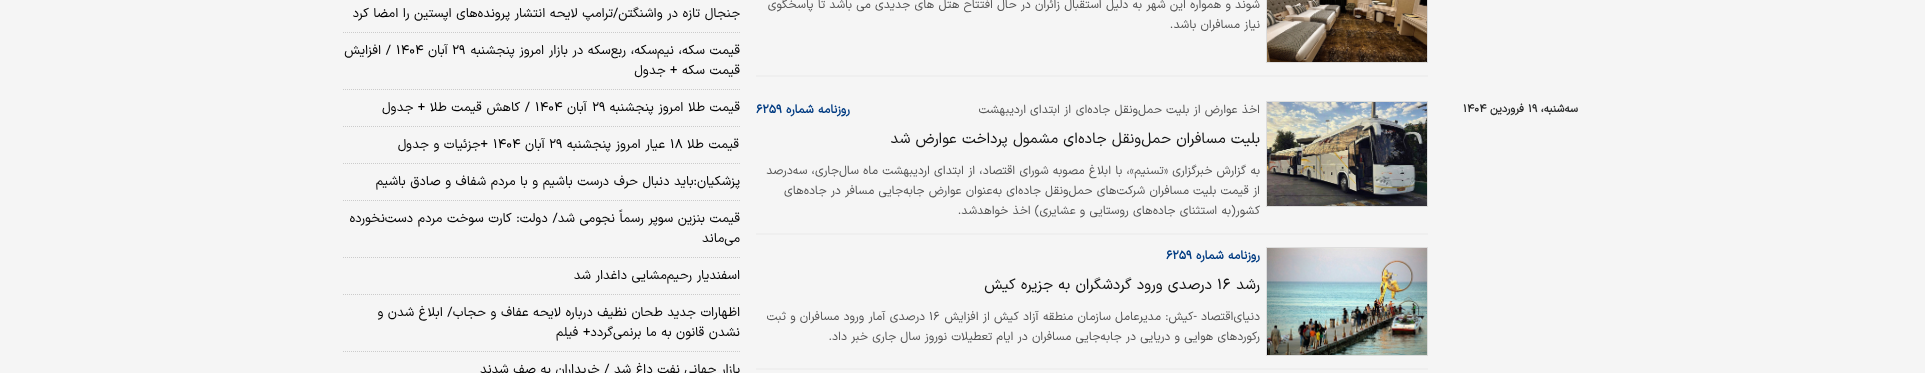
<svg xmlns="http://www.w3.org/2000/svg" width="1925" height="373">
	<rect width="100%" height="100%" fill="#F5F5F5" />
	<rect x="756" y="75" width="672" height="2" fill="#EFEFEF" />
	<rect x="1266.5" y="-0.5" width="161" height="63" fill="none" stroke="#DDDDDD" />
	<image x="1267" y="0" width="160" height="62" href="assets/img1.png" />
	<g font-family="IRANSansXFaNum" font-size="12" direction="rtl" fill="#555555">
		<text x="1260" y="8">شوند و همواره این شهر به دلیل استقبال زائران در حال افتتاح هتل های جدیدی می باشد تا پاسخگوی</text>
		<text x="1260" y="28">نیاز مسافران باشد.</text>
	</g>
	<text x="1578" y="112" font-family="IRANSansXFaNum" font-size="11" font-weight="700" direction="rtl" fill="#292A2A">سه‌شنبه،</text>
	<text x="1528" y="112" font-family="IRANSansXFaNum" font-size="11" font-weight="700" fill="#292A2A">۱۹</text>
	<text x="1524" y="112" font-family="IRANSansXFaNum" font-size="11" font-weight="700" direction="rtl" fill="#292A2A">فروردین</text>
	<text x="1463" y="112" font-family="IRANSansXFaNum" font-size="11" font-weight="700" fill="#292A2A">۱۴۰۴</text>
	<rect x="756" y="233" width="672" height="2" fill="#EFEFEF" />
	<rect x="1266.5" y="101.5" width="161" height="105" fill="none" stroke="#DDDDDD" />
	<image x="1267" y="102" width="160" height="104" href="assets/img2.png" />
	<g font-family="IRANSansXFaNum" font-size="12" direction="rtl" fill="#555555">
		<text x="1260" y="113">اخذ عوارض از بلیت حمل‌ونقل جاده‌ای</text>
		<text x="1071" y="113">از</text>
		<text x="1060" y="113">ابتدای</text>
		<text x="1026" y="113">اردیبهشت</text>
	</g>
	<text x="850" y="113" font-family="IRANSansXFaNum" font-size="12" font-weight="700" direction="rtl" fill="#013B82">روزنامه شماره</text>
	<text x="756" y="113" font-family="IRANSansXFaNum" font-size="12" font-weight="700" fill="#013B82">۶۲۵۹</text>
	<text x="1260" y="143" font-family="IRANSansXFaNum" font-size="15" direction="rtl" fill="#111111">بلیت مسافران حمل‌ونقل جاده‌ای مشمول پرداخت عوارض شد‌</text>
	<g font-family="IRANSansXFaNum" font-size="12" direction="rtl" fill="#555555">
		<text x="1260" y="174">به گزارش خبر‌‌گزاری «تسنیم»، با ابلاغ مصوبه شورای اقتصاد، از ابتدای اردیبهشت ماه سال‌جاری، سه‌درصد</text>
		<text x="1260" y="194">از قیمت بلیت مسافران شرکت‌های حمل‌ونقل جاده‌ای به‌عنوان عوارض جابه‌‌‌‌‌‌‌‌‌‌جایی مسافر در جاده‌‌‌‌‌‌‌‌‌‌های</text>
		<text x="1260" y="214">کشور(به استثنای جاده‌‌‌‌‌‌‌‌‌‌های روستایی و عشایری) اخذ خواهدشد.</text>
	</g>
	<rect x="756" y="368" width="672" height="2" fill="#EFEFEF" />
	<rect x="1266.5" y="247.5" width="161" height="108" fill="none" stroke="#DDDDDD" />
	<image x="1267" y="248" width="160" height="107" href="assets/img3.png" />
	<text x="1260" y="259" font-family="IRANSansXFaNum" font-size="12" font-weight="700" direction="rtl" fill="#013B82">روزنامه شماره</text>
	<text x="1166" y="259" font-family="IRANSansXFaNum" font-size="12" font-weight="700" fill="#013B82">۶۲۵۹</text>
	<text x="1260" y="289" font-family="IRANSansXFaNum" font-size="15" direction="rtl" fill="#111111">رشد</text>
	<text x="1217" y="289" font-family="IRANSansXFaNum" font-size="15" fill="#111111">۱۶</text>
	<text x="1212" y="289" font-family="IRANSansXFaNum" font-size="15" direction="rtl" fill="#111111">درصدی ورود گردشگران به جزیره کیش</text>
	<text x="1260" y="320" font-family="IRANSansXFaNum" font-size="12" direction="rtl" fill="#555555">دنیای‌اقتصاد -کیش: مدیرعامل سازمان منطقه آزاد کیش از افزایش</text>
	<text x="929" y="320" font-family="IRANSansXFaNum" font-size="12" fill="#555555">۱۶</text>
	<g font-family="IRANSansXFaNum" font-size="12" direction="rtl" fill="#555555">
		<text x="925" y="320">درصدی آمار ورود مسافران و ثبت</text>
		<text x="1260" y="340">رکوردهای هوایی و دریایی در جابه‌جایی مسافران در ایام تعطیلات نوروز سال جاری</text>
		<text x="868" y="340">خبر داد.</text>
	</g>
	<path d="M343 32.5H740" fill="none" stroke="#CCCCCC" stroke-dasharray="1 1" />
	<text x="740" y="17" font-family="IRANSansXFaNum" font-size="13" direction="rtl" fill="#000000">جنجال تازه در واشنگتن/ترامپ لایحه انتشار پرونده‌های اپستین را امضا کرد</text>
	<path d="M343 89.5H740" fill="none" stroke="#CCCCCC" stroke-dasharray="1 1" />
	<text x="740" y="54" font-family="IRANSansXFaNum" font-size="13" direction="rtl" fill="#000000">قیمت سکه، نیم‌سکه، ربع‌سکه در بازار امروز پنجشنبه</text>
	<text x="452" y="54" font-family="IRANSansXFaNum" font-size="13" fill="#000000">۲۹</text>
	<text x="448" y="54" font-family="IRANSansXFaNum" font-size="13" direction="rtl" fill="#000000">آبان</text>
	<text x="396" y="54" font-family="IRANSansXFaNum" font-size="13" fill="#000000">۱۴۰۴</text>
	<g font-family="IRANSansXFaNum" font-size="13" direction="rtl" fill="#000000">
		<text x="391" y="54">/ افزایش</text>
		<text x="740" y="74">قیمت سکه + جدول</text>
	</g>
	<path d="M343 126.5H740" fill="none" stroke="#CCCCCC" stroke-dasharray="1 1" />
	<text x="740" y="111" font-family="IRANSansXFaNum" font-size="13" direction="rtl" fill="#000000">قیمت طلا امروز پنجشنبه</text>
	<text x="592" y="111" font-family="IRANSansXFaNum" font-size="13" fill="#000000">۲۹</text>
	<text x="587" y="111" font-family="IRANSansXFaNum" font-size="13" direction="rtl" fill="#000000">آبان</text>
	<text x="535" y="111" font-family="IRANSansXFaNum" font-size="13" fill="#000000">۱۴۰۴</text>
	<text x="530" y="111" font-family="IRANSansXFaNum" font-size="13" direction="rtl" fill="#000000">/ کاهش قیمت طلا + جدول</text>
	<path d="M343 163.5H740" fill="none" stroke="#CCCCCC" stroke-dasharray="1 1" />
	<text x="739" y="148" font-family="IRANSansXFaNum" font-size="13" direction="rtl" fill="#000000">قیمت طلا</text>
	<text x="670" y="148" font-family="IRANSansXFaNum" font-size="13" fill="#000000">۱۸</text>
	<text x="665" y="148" font-family="IRANSansXFaNum" font-size="13" direction="rtl" fill="#000000">عیار امروز پنجشنبه</text>
	<text x="549" y="148" font-family="IRANSansXFaNum" font-size="13" fill="#000000">۲۹</text>
	<text x="545" y="148" font-family="IRANSansXFaNum" font-size="13" direction="rtl" fill="#000000">آبان</text>
	<text x="493" y="148" font-family="IRANSansXFaNum" font-size="13" fill="#000000">۱۴۰۴</text>
	<text x="488" y="148" font-family="IRANSansXFaNum" font-size="13" direction="rtl" fill="#000000">+جزئیات و جدول</text>
	<path d="M343 200.5H740" fill="none" stroke="#CCCCCC" stroke-dasharray="1 1" />
	<text x="740" y="185" font-family="IRANSansXFaNum" font-size="13" direction="rtl" fill="#000000">پزشکیان:باید دنبال حرف درست باشیم و با مردم شفاف و صادق باشیم</text>
	<path d="M343 257.5H740" fill="none" stroke="#CCCCCC" stroke-dasharray="1 1" />
	<g font-family="IRANSansXFaNum" font-size="13" direction="rtl" fill="#000000">
		<text x="740" y="222">قیمت بنزین سوپر رسماً نجومی شد/ دولت: کارت سوخت مردم دست‌نخورده</text>
		<text x="740" y="242">می‌ماند</text>
	</g>
	<path d="M343 294.5H740" fill="none" stroke="#CCCCCC" stroke-dasharray="1 1" />
	<text x="740" y="279" font-family="IRANSansXFaNum" font-size="13" direction="rtl" fill="#000000">اسفندیار رحیم‌مشایی داغدار شد</text>
	<path d="M343 351.5H740" fill="none" stroke="#CCCCCC" stroke-dasharray="1 1" />
	<g font-family="IRANSansXFaNum" font-size="13" direction="rtl" fill="#000000">
		<text x="740" y="316">اظهارات جدید طحان نظیف درباره لایحه عفاف و حجاب/ ابلاغ شدن و</text>
		<text x="740" y="336">نشدن قانون به ما برنمی</text>
		<text x="613" y="336">گردد+ فیلم</text>
		<text x="740" y="373">بازار جهانی نفت داغ شد / خریداران به صف شدند</text>
	</g>
</svg>
